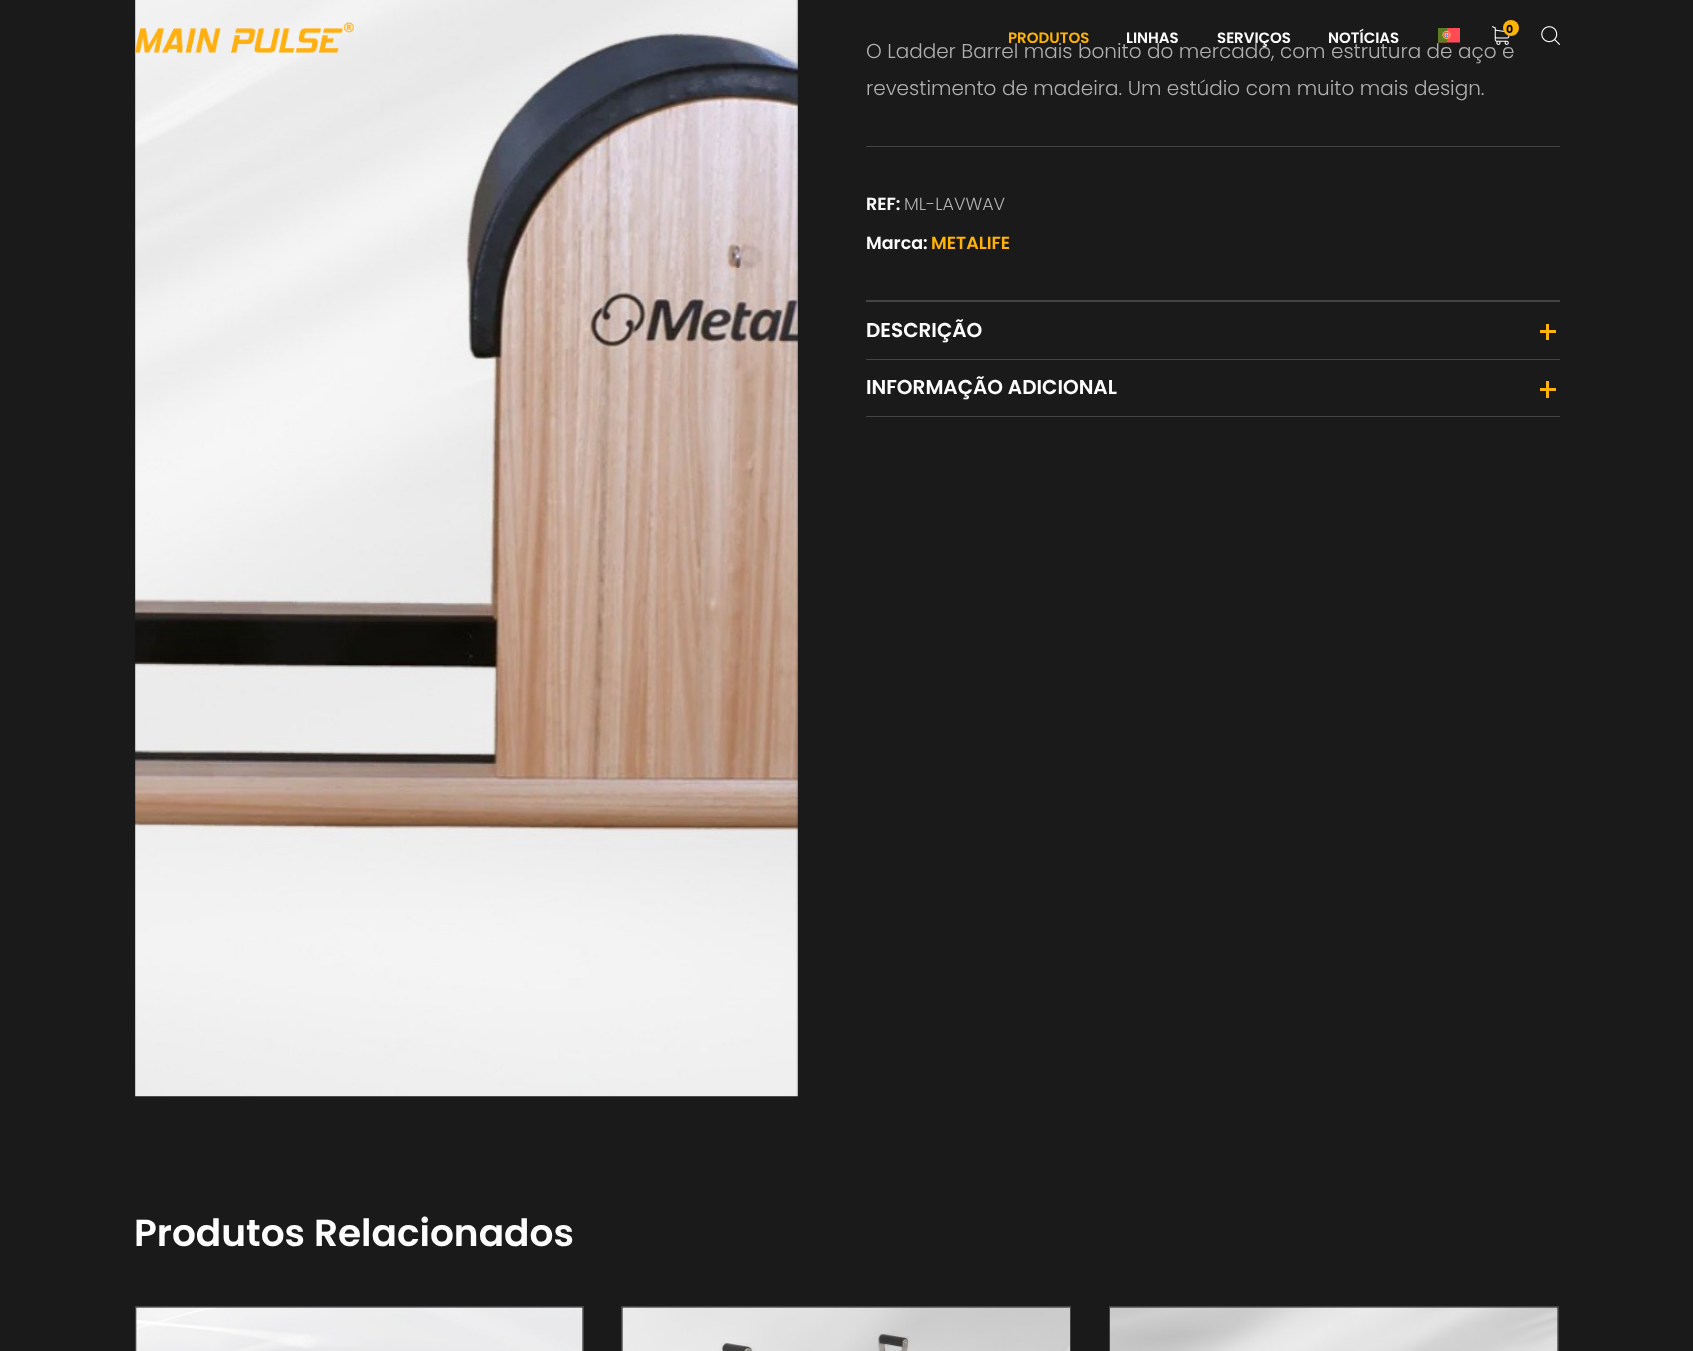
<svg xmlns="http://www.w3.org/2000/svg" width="1693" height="1351">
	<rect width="100%" height="100%" fill="#1A1A1A" />
	<image x="135" y="0" width="663" height="1097" href="assets/img5.png" />
	<image x="134" y="22" width="220" height="31" href="assets/img1.png" />
	<text x="1008" y="43" font-family="Poppins" font-size="15" font-weight="600" fill="#FEB406">PRODUTOS</text>
	<g font-family="Poppins" font-size="15" font-weight="600" fill="#FFFFFF">
		<text x="1126" y="43">LINHAS</text>
		<text x="1217" y="43">SERVIÇOS</text>
		<text x="1328" y="43">NOTÍCIAS</text>
	</g>
	<text x="866" y="58" font-family="Poppins" font-size="20" font-weight="300" fill="#B1B0B0">O Ladder Barrel mais bonito do mercado, com estrutura de aço e</text>
	<image x="1438" y="28" width="22" height="15" href="assets/img2.png" />
	<image x="1491" y="26" width="19" height="19" href="assets/img3.png" />
	<circle cx="1511" cy="28" r="8" fill="#FEB406" />
	<text x="1506" y="33" font-family="Poppins" font-size="11" font-weight="700" fill="#000000">0</text>
	<image x="1541" y="26" width="19" height="19" href="assets/img4.png" />
	<rect x="866" y="146" width="694" height="1" fill="#444444" />
	<text x="866" y="95" font-family="Poppins" font-size="20" font-weight="300" fill="#B1B0B0">revestimento de madeira. Um estúdio com muito mais design.</text>
	<rect x="866" y="300" width="694" height="2" fill="#444444" />
	<text x="866" y="210" font-family="Poppins" font-size="17.5" font-weight="600" fill="#FFFFFF">REF:</text>
	<text x="904" y="210" font-family="Poppins" font-size="17.5" font-weight="300" fill="#B1B0B0">ML-LAVWAV</text>
	<text x="866" y="249" font-family="Poppins" font-size="17.5" font-weight="600" fill="#FFFFFF">Marca:</text>
	<text x="931" y="249" font-family="Poppins" font-size="17.5" font-weight="600" fill="#FEB406">METALIFE</text>
	<rect x="866" y="359" width="694" height="1" fill="#444444" />
	<text x="866" y="337" font-family="Poppins" font-size="20" font-weight="600" fill="#FFFFFF">DESCRIÇÃO</text>
	<rect x="1540" y="330" width="16" height="3" fill="#FEB406" />
	<rect x="1546" y="324" width="3" height="16" fill="#FEB406" />
	<rect x="866" y="416" width="694" height="1" fill="#444444" />
	<text x="866" y="394" font-family="Poppins" font-size="20" font-weight="600" fill="#FFFFFF">INFORMAÇÃO ADICIONAL</text>
	<rect x="1540" y="388" width="16" height="3" fill="#FEB406" />
	<rect x="1546" y="381" width="3" height="17" fill="#FEB406" />
	<text x="134" y="1246" font-family="Poppins" font-size="37.5" font-weight="600" fill="#FFFFFF">Produtos Relacionados</text>
	<rect x="135.5" y="1306.5" width="448" height="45" fill="#0D0D0D" stroke="#444444" />
	<image x="136" y="1307" width="447" height="44" href="assets/img6.png" />
	<rect x="621.5" y="1306.5" width="449" height="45" fill="#0D0D0D" stroke="#444444" />
	<image x="622" y="1307" width="448" height="44" href="assets/img7.png" />
	<rect x="1109.5" y="1306.5" width="449" height="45" fill="#0D0D0D" stroke="#444444" />
	<image x="1110" y="1307" width="448" height="44" href="assets/img8.png" />
</svg>
